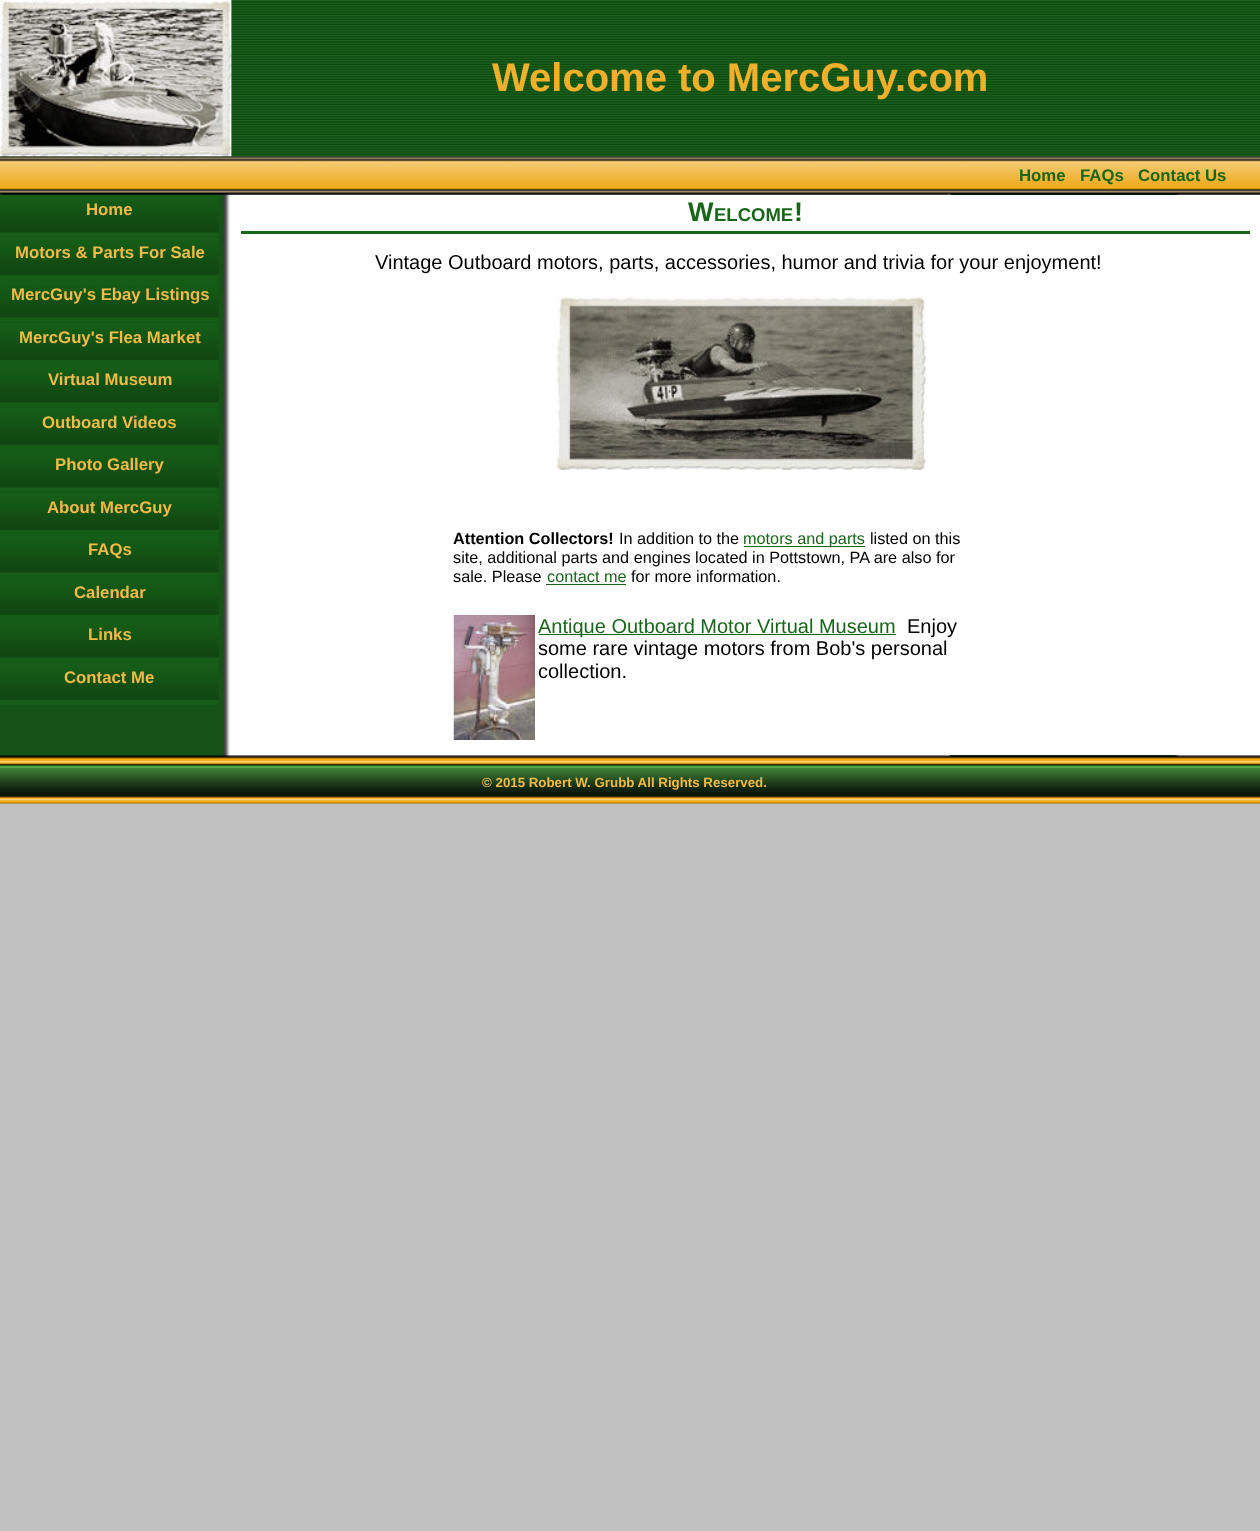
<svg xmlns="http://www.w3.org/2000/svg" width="1260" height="1531">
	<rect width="100%" height="100%" fill="#C0C0C0" />
	<rect x="0" y="0" width="1260" height="804" fill="#FFFFFF" />
	<image x="0" y="0" width="232" height="157" href="assets/img1.png" />
	<image x="231" y="0" width="1029" height="157" href="assets/img3.png" />
	<image x="0" y="156" width="1260" height="39" href="assets/img4.png" />
	<image x="0" y="0" width="232" height="157" href="assets/img2.png" />
	<text x="492" y="91" font-family="Liberation Sans" font-size="40" font-weight="700" fill="#EFB02C">Welcome to MercGuy.com</text>
	<g font-family="Liberation Sans" font-size="16.75" font-weight="700" fill="#19661B">
		<text x="1019" y="181">Home</text>
		<text x="1080" y="181">FAQs</text>
		<text x="1138" y="181">Contact Us</text>
	</g>
	<image x="0" y="195" width="230" height="560" href="assets/img5.png" />
	<image x="0" y="195" width="219" height="43" href="assets/img6.png" />
	<text x="86" y="215" font-family="Liberation Sans" font-size="16.75" font-weight="700" fill="#F2BA48">Home</text>
	<image x="0" y="238" width="219" height="42" href="assets/img7.png" />
	<text x="15" y="258" font-family="Liberation Sans" font-size="16.75" font-weight="700" fill="#F2BA48">Motors &amp; Parts For Sale</text>
	<image x="0" y="280" width="219" height="43" href="assets/img8.png" />
	<text x="11" y="300" font-family="Liberation Sans" font-size="16.75" font-weight="700" fill="#F2BA48">MercGuy's Ebay Listings</text>
	<image x="0" y="323" width="219" height="42" href="assets/img9.png" />
	<text x="19" y="343" font-family="Liberation Sans" font-size="16.75" font-weight="700" fill="#F2BA48">MercGuy's Flea Market</text>
	<image x="0" y="365" width="219" height="43" href="assets/img10.png" />
	<text x="48" y="385" font-family="Liberation Sans" font-size="16.75" font-weight="700" fill="#F2BA48">Virtual Museum</text>
	<image x="0" y="408" width="219" height="42" href="assets/img11.png" />
	<text x="42" y="428" font-family="Liberation Sans" font-size="16.75" font-weight="700" fill="#F2BA48">Outboard Videos</text>
	<image x="0" y="450" width="219" height="43" href="assets/img12.png" />
	<text x="55" y="470" font-family="Liberation Sans" font-size="16.75" font-weight="700" fill="#F2BA48">Photo Gallery</text>
	<image x="0" y="493" width="219" height="42" href="assets/img13.png" />
	<text x="47" y="513" font-family="Liberation Sans" font-size="16.75" font-weight="700" fill="#F2BA48">About MercGuy</text>
	<image x="0" y="535" width="219" height="43" href="assets/img14.png" />
	<text x="88" y="555" font-family="Liberation Sans" font-size="16.75" font-weight="700" fill="#F2BA48">FAQs</text>
	<image x="0" y="578" width="219" height="42" href="assets/img15.png" />
	<text x="74" y="598" font-family="Liberation Sans" font-size="16.75" font-weight="700" fill="#F2BA48">Calendar</text>
	<image x="0" y="620" width="219" height="43" href="assets/img16.png" />
	<text x="88" y="640" font-family="Liberation Sans" font-size="16.75" font-weight="700" fill="#F2BA48">Links</text>
	<image x="0" y="663" width="219" height="42" href="assets/img17.png" />
	<text x="64" y="683" font-family="Liberation Sans" font-size="16.75" font-weight="700" fill="#F2BA48">Contact Me</text>
	<rect x="241" y="231" width="1009" height="3" fill="#19661B" />
	<text x="688" y="221" font-family="Liberation Sans" font-size="27" font-weight="700" fill="#19661B">W</text>
	<text x="714" y="221" font-family="Liberation Sans" font-size="18.5" font-weight="700" fill="#19661B">ELCOME</text>
	<text x="794" y="221" font-family="Liberation Sans" font-size="27" font-weight="700" fill="#19661B">!</text>
	<text x="375" y="269" font-family="Liberation Sans" font-size="20" fill="#000000">Vintage Outboard motors, parts, accessories, humor and trivia for your enjoyment!</text>
	<image x="556" y="296" width="371" height="174" href="assets/img18.png" />
	<text x="453" y="544" font-family="Liberation Sans" font-size="16.25" font-weight="700" fill="#000000">Attention Collectors!</text>
	<text x="619" y="544" font-family="Liberation Sans" font-size="16.25" fill="#000000">In addition to the</text>
	<rect x="744" y="546" width="121" height="1" fill="#19661B" />
	<text x="743" y="544" font-family="Liberation Sans" font-size="16.25" fill="#19661B">motors and parts</text>
	<g font-family="Liberation Sans" font-size="16.25" fill="#000000">
		<text x="870" y="544">listed on this</text>
		<text x="453" y="563">site, additional parts and engines located in Pottstown, PA are also for</text>
		<text x="453" y="582">sale. Please</text>
	</g>
	<text x="547" y="582" font-family="Liberation Sans" font-size="16.25" fill="#19661B">contact me</text>
	<rect x="546" y="584" width="80" height="1" fill="#19661B" />
	<text x="631" y="582" font-family="Liberation Sans" font-size="16.25" fill="#000000">for more information.</text>
	<image x="453" y="615" width="82" height="125" href="assets/img19.png" />
	<rect x="539" y="634" width="357" height="1" fill="#19661B" />
	<text x="538" y="633" font-family="Liberation Sans" font-size="20" fill="#19661B">Antique Outboard Motor Virtual Museum</text>
	<g font-family="Liberation Sans" font-size="20" fill="#000000">
		<text x="907" y="633">Enjoy</text>
		<text x="538" y="655">some rare vintage motors from Bob's personal</text>
		<text x="538" y="678">collection.</text>
	</g>
	<image x="0" y="755" width="1260" height="49" href="assets/img20.png" />
	<text x="482" y="787" font-family="Liberation Sans" font-size="13.3" font-weight="700" fill="#F2BA48">© 2015 Robert W. Grubb All Rights Reserved.</text>
</svg>
